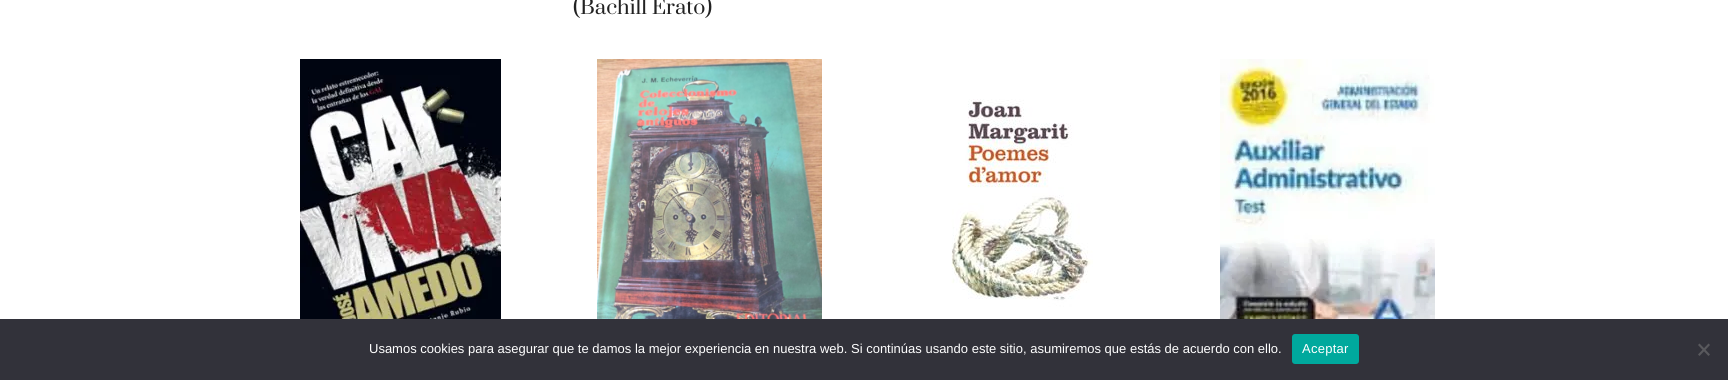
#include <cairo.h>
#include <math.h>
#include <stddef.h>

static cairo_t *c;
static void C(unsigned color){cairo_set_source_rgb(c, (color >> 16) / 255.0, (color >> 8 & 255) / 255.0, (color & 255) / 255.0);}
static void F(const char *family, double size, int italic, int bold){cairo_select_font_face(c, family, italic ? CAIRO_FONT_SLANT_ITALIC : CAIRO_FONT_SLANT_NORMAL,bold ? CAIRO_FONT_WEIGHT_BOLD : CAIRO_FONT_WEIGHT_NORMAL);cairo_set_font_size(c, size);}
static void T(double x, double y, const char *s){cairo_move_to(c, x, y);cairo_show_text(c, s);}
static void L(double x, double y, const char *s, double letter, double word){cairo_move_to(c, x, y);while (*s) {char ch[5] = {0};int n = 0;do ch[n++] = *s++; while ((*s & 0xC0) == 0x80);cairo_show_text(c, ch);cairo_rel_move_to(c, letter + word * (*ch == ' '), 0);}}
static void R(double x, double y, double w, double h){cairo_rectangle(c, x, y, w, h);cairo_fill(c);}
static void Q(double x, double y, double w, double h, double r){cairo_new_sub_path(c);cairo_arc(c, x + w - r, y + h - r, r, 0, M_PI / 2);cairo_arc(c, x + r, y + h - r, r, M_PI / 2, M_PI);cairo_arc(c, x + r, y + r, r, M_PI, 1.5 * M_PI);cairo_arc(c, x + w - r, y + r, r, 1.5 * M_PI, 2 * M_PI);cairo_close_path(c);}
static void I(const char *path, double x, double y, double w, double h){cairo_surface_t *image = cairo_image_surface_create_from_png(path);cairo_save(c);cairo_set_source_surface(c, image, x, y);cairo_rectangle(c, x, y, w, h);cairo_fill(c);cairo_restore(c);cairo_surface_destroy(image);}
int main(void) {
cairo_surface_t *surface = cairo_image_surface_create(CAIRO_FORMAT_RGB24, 1728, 380);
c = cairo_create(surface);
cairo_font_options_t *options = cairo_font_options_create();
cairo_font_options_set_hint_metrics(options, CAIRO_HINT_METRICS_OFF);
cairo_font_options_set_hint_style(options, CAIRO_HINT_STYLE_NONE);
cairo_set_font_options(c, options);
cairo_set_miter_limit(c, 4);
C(0xffffff);
cairo_paint(c);
F("Prata",20,0,0);
C(0x222222);
T(573,14,"(Bachill Erato)");
I("1.png",300,59,201,260);
I("2.png",597,59,225,260);
I("3.png",951,99,142,220);
I("4.png",1220,59,215,260);
C(0x32323a);
R(0,319,1728,61);
F("Liberation Sans",13,0,0);
C(0xffffff);
T(369,353,"Usamos cookies para asegurar que te damos la mejor experiencia en nuestra web. Si continúas usando este sitio, asumiremos que estás de acuerdo con ello.");
C(0x00a99d);
Q(1292,334,67,30,3);
cairo_fill(c);
C(0xffffff);
L(1302,353,"Aceptar",.25,0);
C(0x59595d);
cairo_new_path(c);
cairo_move_to(c,1708.5,343.5);
cairo_line_to(c,1710,345);
cairo_line_to(c,1699.5,356);
cairo_line_to(c,1698,354.5);
cairo_close_path(c);
cairo_fill(c);
cairo_new_path(c);
cairo_move_to(c,1698,345);
cairo_line_to(c,1699.5,343.5);
cairo_line_to(c,1710,354.5);
cairo_line_to(c,1708.5,356);
cairo_close_path(c);
cairo_fill(c);
cairo_surface_write_to_png(surface, "o.png");
cairo_font_options_destroy(options);
cairo_destroy(c);
cairo_surface_destroy(surface);
return 0;
}
